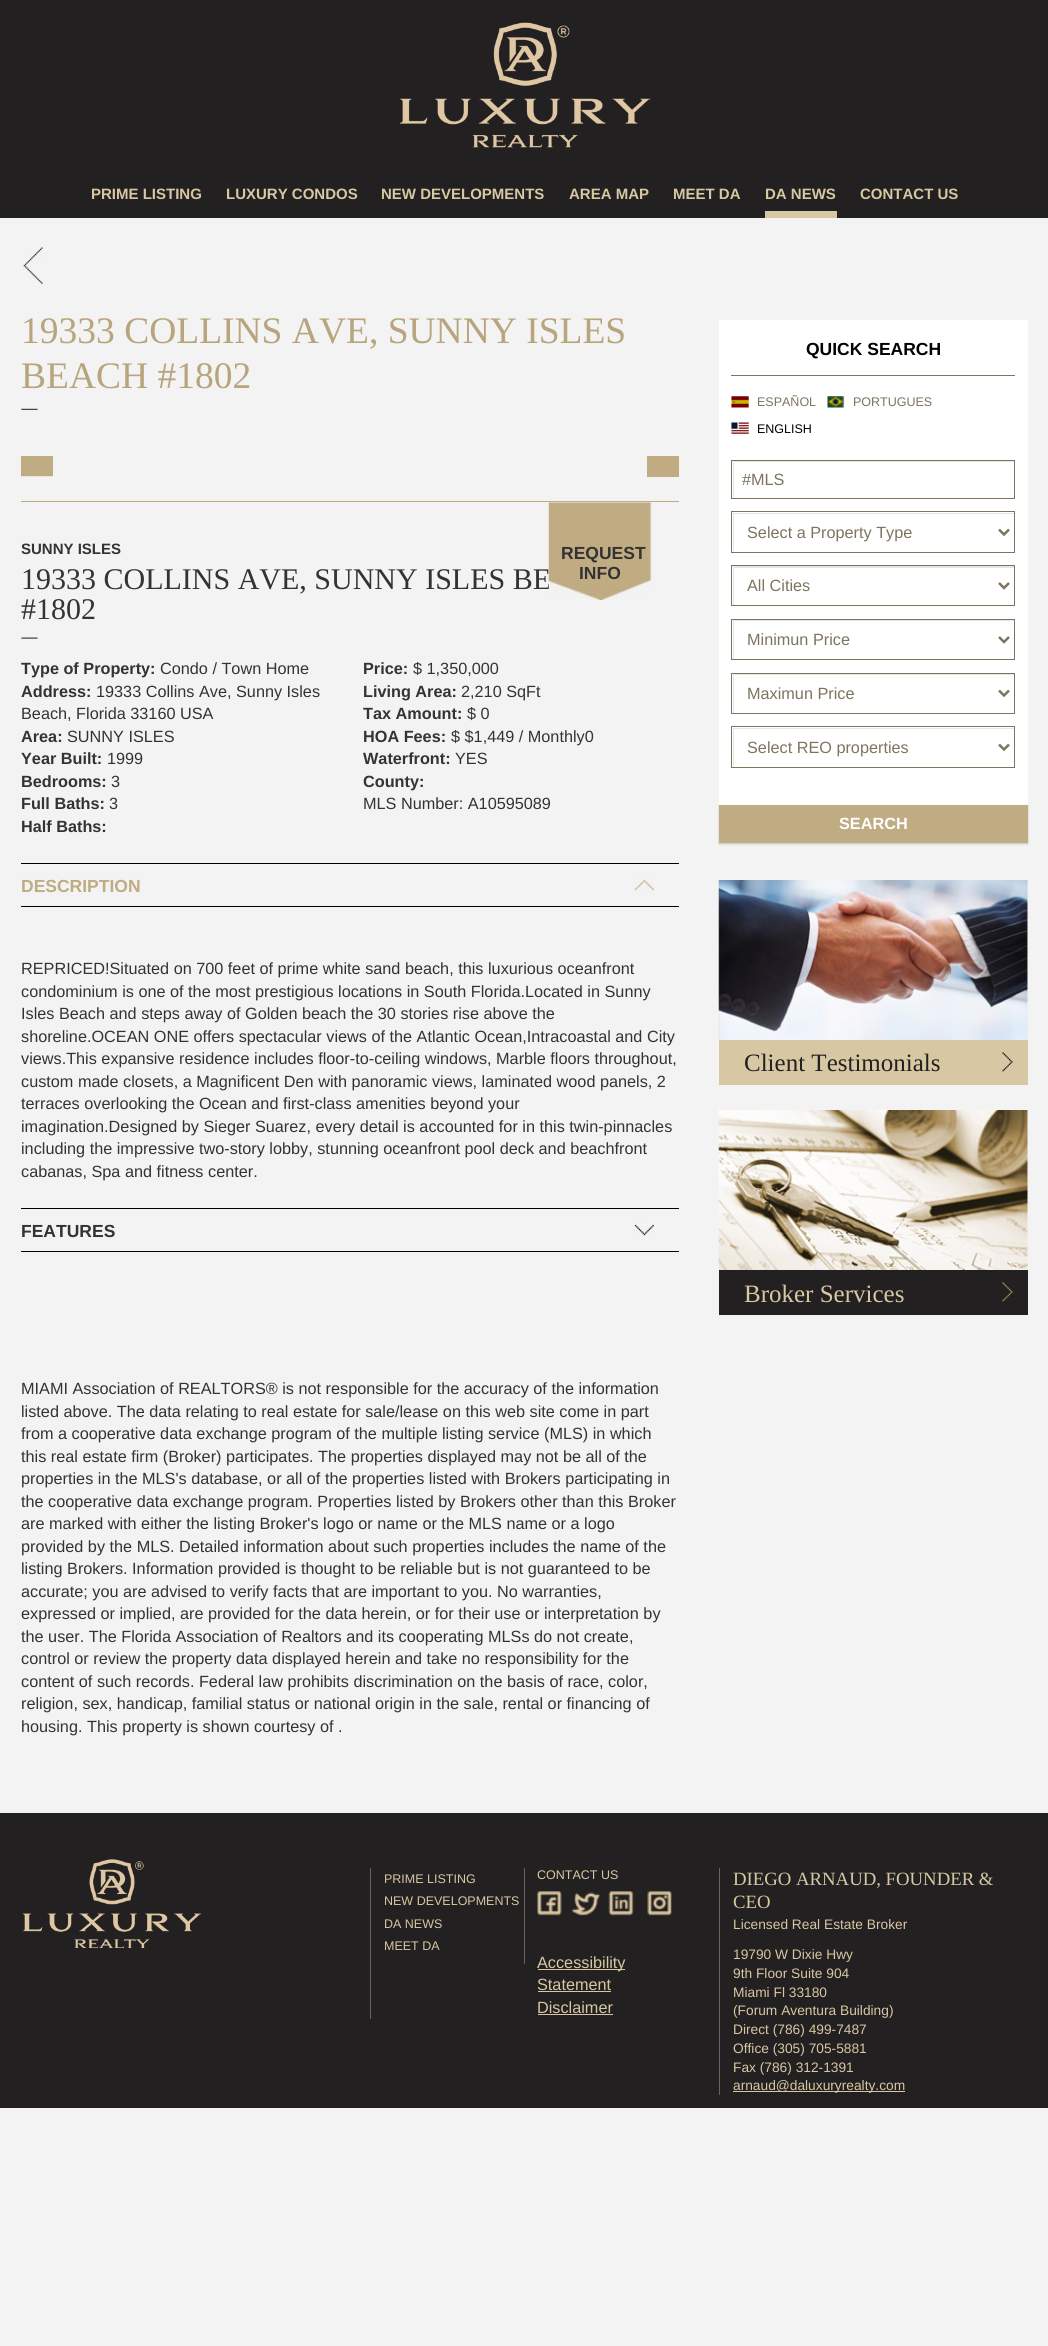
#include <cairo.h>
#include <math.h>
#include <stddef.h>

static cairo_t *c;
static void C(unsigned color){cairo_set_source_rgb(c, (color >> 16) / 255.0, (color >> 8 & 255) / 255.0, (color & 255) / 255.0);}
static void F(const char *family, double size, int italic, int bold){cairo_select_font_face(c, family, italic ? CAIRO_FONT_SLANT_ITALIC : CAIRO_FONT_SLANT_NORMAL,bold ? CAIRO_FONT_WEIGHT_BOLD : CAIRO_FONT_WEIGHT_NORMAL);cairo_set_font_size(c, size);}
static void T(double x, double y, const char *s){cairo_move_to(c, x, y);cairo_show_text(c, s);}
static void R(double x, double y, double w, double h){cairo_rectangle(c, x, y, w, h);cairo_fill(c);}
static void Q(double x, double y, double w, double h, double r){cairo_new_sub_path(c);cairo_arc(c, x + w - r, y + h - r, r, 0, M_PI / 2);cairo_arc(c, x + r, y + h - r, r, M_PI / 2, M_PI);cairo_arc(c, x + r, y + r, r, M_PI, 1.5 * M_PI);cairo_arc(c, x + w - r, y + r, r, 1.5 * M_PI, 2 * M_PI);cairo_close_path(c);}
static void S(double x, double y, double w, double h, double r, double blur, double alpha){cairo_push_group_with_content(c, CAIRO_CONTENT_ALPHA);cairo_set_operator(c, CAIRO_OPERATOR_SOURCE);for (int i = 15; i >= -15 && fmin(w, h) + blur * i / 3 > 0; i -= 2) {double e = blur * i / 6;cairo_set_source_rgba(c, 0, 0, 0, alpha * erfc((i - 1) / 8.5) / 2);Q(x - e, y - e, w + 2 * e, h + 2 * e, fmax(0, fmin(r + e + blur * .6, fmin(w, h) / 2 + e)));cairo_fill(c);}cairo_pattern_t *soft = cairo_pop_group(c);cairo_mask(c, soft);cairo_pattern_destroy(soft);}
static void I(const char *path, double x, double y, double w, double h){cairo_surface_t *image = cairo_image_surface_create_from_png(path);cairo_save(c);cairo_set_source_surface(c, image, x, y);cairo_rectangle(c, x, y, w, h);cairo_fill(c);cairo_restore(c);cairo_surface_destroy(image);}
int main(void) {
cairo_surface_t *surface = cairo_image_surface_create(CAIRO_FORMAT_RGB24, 1048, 2346);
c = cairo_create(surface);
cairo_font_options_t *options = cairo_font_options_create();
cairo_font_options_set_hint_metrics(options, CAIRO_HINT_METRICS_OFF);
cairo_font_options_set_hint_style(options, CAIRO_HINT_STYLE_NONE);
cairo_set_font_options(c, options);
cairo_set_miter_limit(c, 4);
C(0xf3f3f3);
cairo_paint(c);
C(0x232021);
R(0,0,1048,218);
I("1.png",400,22,251,126);
F("Liberation Sans",15,0,1);
C(0xd7c7a3);
T(91,199,"PRIME LISTING");
T(226,199,"LUXURY CONDOS");
T(381,199,"NEW DEVELOPMENTS");
T(569,199,"AREA MAP");
T(673,199,"MEET DA");
R(765,211,72,7);
T(765,199,"DA NEWS");
T(860,199,"CONTACT US");
I("2.png",23,247,20,37);
I("3.png",21,408,17,2);
F("Liberation Serif",37.5,0,0);
C(0xb8a57e);
T(21,343,"19333 COLLINS AVE, SUNNY ISLES");
T(21,388,"BEACH #1802");
C(0xc0ac83);
R(21,456,32,20);
I("4.png",21,476,32,1);
C(0xc1ab82);
R(647,456,32,21);
C(0xc0ac83);
R(21,501,658,1);
F("Liberation Sans",15,0,1);
C(0x333333);
T(21,554,"SUNNY ISLES");
F("Liberation Serif",30,0,0);
T(21,589,"19333 COLLINS AVE, SUNNY ISLES BE");
I("5.png",548,502,104,98);
F("Liberation Sans",17.5,0,1);
T(561,559,"REQUEST");
T(579,579,"INFO");
I("6.png",21,637,17,2);
F("Liberation Serif",30,0,0);
T(21,619,"#1802");
F("Liberation Sans",16.25,0,1);
T(21,674,"Type of Property:");
F("Liberation Sans",16.25,0,0);
T(160,674,"Condo / Town Home");
F("Liberation Sans",16.25,0,1);
T(21,697,"Address:");
F("Liberation Sans",16.25,0,0);
T(96,697,"19333 Collins Ave, Sunny Isles");
T(21,719,"Beach, Florida 33160 USA");
F("Liberation Sans",16.25,0,1);
T(21,742,"Area:");
F("Liberation Sans",16.25,0,0);
T(67,742,"SUNNY ISLES");
F("Liberation Sans",16.25,0,1);
T(21,764,"Year Built:");
F("Liberation Sans",16.25,0,0);
T(107,764,"1999");
F("Liberation Sans",16.25,0,1);
T(21,787,"Bedrooms:");
F("Liberation Sans",16.25,0,0);
T(111,787,"3");
F("Liberation Sans",16.25,0,1);
T(21,809,"Full Baths:");
F("Liberation Sans",16.25,0,0);
T(109,809,"3");
F("Liberation Sans",16.25,0,1);
T(21,832,"Half Baths:");
T(363,674,"Price:");
F("Liberation Sans",16.25,0,0);
T(413,674,"$ 1,350,000");
F("Liberation Sans",16.25,0,1);
T(363,697,"Living Area:");
F("Liberation Sans",16.25,0,0);
T(461,697,"2,210 SqFt");
F("Liberation Sans",16.25,0,1);
T(363,719,"Tax Amount:");
F("Liberation Sans",16.25,0,0);
T(467,719,"$ 0");
F("Liberation Sans",16.25,0,1);
T(363,742,"HOA Fees:");
F("Liberation Sans",16.25,0,0);
T(451,742,"$ $1,449 / Monthly0");
F("Liberation Sans",16.25,0,1);
T(363,764,"Waterfront:");
F("Liberation Sans",16.25,0,0);
T(455,764,"YES");
F("Liberation Sans",16.25,0,1);
T(363,787,"County:");
F("Liberation Sans",16.25,0,0);
T(363,809,"MLS Number: A10595089");
I("7.png",634,874,20,20);
C(0x000000);
R(21,863,658,1);
R(21,906,658,1);
F("Liberation Sans",17.5,0,1);
C(0xc0ac83);
T(21,892,"DESCRIPTION");
F("Liberation Sans",16.25,0,0);
C(0x333333);
T(21,974,"REPRICED!Situated on 700 feet of prime white sand beach, this luxurious oceanfront");
T(21,997,"condominium is one of the most prestigious locations in South Florida.Located in Sunny");
T(21,1019,"Isles Beach and steps away of Golden beach the 30 stories rise above the");
T(21,1042,"shoreline.OCEAN ONE offers spectacular views of the Atlantic Ocean,Intracoastal and City");
T(21,1064,"views.This expansive residence includes floor-to-ceiling windows, Marble floors throughout,");
T(21,1087,"custom made closets, a Magnificent Den with panoramic views, laminated wood panels, 2");
T(21,1109,"terraces overlooking the Ocean and first-class amenities beyond your");
T(21,1132,"imagination.Designed by Sieger Suarez, every detail is accounted for in this twin-pinnacles");
T(21,1154,"including the impressive two-story lobby, stunning oceanfront pool deck and beachfront");
T(21,1177,"cabanas, Spa and fitness center.");
I("8.png",634,1223,20,13);
C(0x000000);
R(21,1208,658,1);
R(21,1251,658,1);
F("Liberation Sans",17.5,0,1);
C(0x333333);
T(21,1237,"FEATURES");
F("Liberation Sans",16.25,0,0);
T(21,1394,"MIAMI Association of REALTORS® is not responsible for the accuracy of the information");
T(21,1417,"listed above. The data relating to real estate for sale/lease on this web site come in part");
T(21,1439,"from a cooperative data exchange program of the multiple listing service (MLS) in which");
T(21,1462,"this real estate firm (Broker) participates. The properties displayed may not be all of the");
T(21,1484,"properties in the MLS's database, or all of the properties listed with Brokers participating in");
T(21,1507,"the cooperative data exchange program. Properties listed by Brokers other than this Broker");
T(21,1529,"are marked with either the listing Broker's logo or name or the MLS name or a logo");
T(21,1552,"provided by the MLS. Detailed information about such properties includes the name of the");
T(21,1574,"listing Brokers. Information provided is thought to be reliable but is not guaranteed to be");
T(21,1597,"accurate; you are advised to verify facts that are important to you. No warranties,");
T(21,1619,"expressed or implied, are provided for the data herein, or for their use or interpretation by");
T(21,1642,"the user. The Florida Association of Realtors and its cooperating MLSs do not create,");
T(21,1664,"control or review the property data displayed herein and take no responsibility for the");
T(21,1687,"content of such records. Federal law prohibits discrimination on the basis of race, color,");
T(21,1709,"religion, sex, handicap, familial status or national origin in the sale, rental or financing of");
T(21,1732,"housing. This property is shown courtesy of .");
C(0xffffff);
R(719,320,309,485);
C(0x7d745f);
R(731,375,284,1);
F("Liberation Sans",17.5,0,1);
C(0x030000);
T(806,355,"QUICK SEARCH");
I("9.png",731,396,18,12);
F("Liberation Sans",12.5,0,0);
C(0x7d745f);
T(757,406,"ESPAÑOL");
I("10.png",827,396,18,12);
T(853,406,"PORTUGUES");
I("11.png",731,422,18,12);
C(0x030000);
T(757,433,"ENGLISH");
cairo_save(c);
cairo_rectangle(c,733,461,281,37);
cairo_clip(c);
C(0xe6e6e6);
cairo_set_fill_rule(c,CAIRO_FILL_RULE_EVEN_ODD);
cairo_new_path(c);
cairo_move_to(c,609,338);
cairo_line_to(c,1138,338);
cairo_line_to(c,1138,621);
cairo_line_to(c,609,621);
cairo_close_path(c);
cairo_move_to(c,734,462);
cairo_line_to(c,1015,462);
cairo_line_to(c,1015,499);
cairo_line_to(c,734,499);
cairo_close_path(c);
cairo_fill(c);
cairo_restore(c);
cairo_rectangle(c,731.5,460.5,283,38);
C(0x7d745f);
cairo_set_line_width(c,1);
cairo_stroke(c);
F("Liberation Sans",16.25,0,0);
T(742,485,"#MLS");
cairo_save(c);
cairo_rectangle(c,733,513,281,38);
cairo_clip(c);
C(0xe6e6e6);
cairo_set_fill_rule(c,CAIRO_FILL_RULE_EVEN_ODD);
cairo_new_path(c);
cairo_move_to(c,609,389);
cairo_line_to(c,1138,389);
cairo_line_to(c,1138,675);
cairo_line_to(c,609,675);
cairo_close_path(c);
cairo_move_to(c,734,514);
cairo_line_to(c,1015,514);
cairo_line_to(c,1015,552);
cairo_line_to(c,734,552);
cairo_close_path(c);
cairo_fill(c);
cairo_restore(c);
cairo_rectangle(c,731.5,511.5,283,41);
cairo_stroke(c);
cairo_new_path(c);
cairo_move_to(c,999,529.5);
cairo_line_to(c,1004,534.5);
cairo_line_to(c,1009,529.5);
cairo_set_line_width(c,2.5);
cairo_stroke(c);
T(747,538,"Select a Property Type");
cairo_save(c);
cairo_rectangle(c,733,566,281,39);
cairo_clip(c);
C(0xe6e6e6);
cairo_set_fill_rule(c,CAIRO_FILL_RULE_EVEN_ODD);
cairo_new_path(c);
cairo_move_to(c,609,442);
cairo_line_to(c,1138,442);
cairo_line_to(c,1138,729);
cairo_line_to(c,609,729);
cairo_close_path(c);
cairo_move_to(c,734,568);
cairo_line_to(c,1015,568);
cairo_line_to(c,1015,606);
cairo_line_to(c,734,606);
cairo_close_path(c);
cairo_fill(c);
cairo_restore(c);
cairo_rectangle(c,731.5,565.5,283,40);
cairo_set_line_width(c,1);
cairo_stroke(c);
cairo_new_path(c);
cairo_move_to(c,999,583);
cairo_line_to(c,1004,588);
cairo_line_to(c,1009,583);
cairo_set_line_width(c,2.5);
cairo_stroke(c);
T(747,591,"All Cities");
cairo_save(c);
cairo_rectangle(c,733,620,281,39);
cairo_clip(c);
C(0xe6e6e6);
cairo_set_fill_rule(c,CAIRO_FILL_RULE_EVEN_ODD);
cairo_new_path(c);
cairo_move_to(c,609,496);
cairo_line_to(c,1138,496);
cairo_line_to(c,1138,782);
cairo_line_to(c,609,782);
cairo_close_path(c);
cairo_move_to(c,734,621);
cairo_line_to(c,1015,621);
cairo_line_to(c,1015,660);
cairo_line_to(c,734,660);
cairo_close_path(c);
cairo_fill(c);
cairo_restore(c);
cairo_rectangle(c,731.5,619.5,283,40);
cairo_set_line_width(c,1);
cairo_stroke(c);
cairo_new_path(c);
cairo_move_to(c,999,637);
cairo_line_to(c,1004,642);
cairo_line_to(c,1009,637);
cairo_set_line_width(c,2.5);
cairo_stroke(c);
T(747,645,"Minimun Price");
cairo_save(c);
cairo_rectangle(c,733,674,281,39);
cairo_clip(c);
C(0xe6e6e6);
cairo_set_fill_rule(c,CAIRO_FILL_RULE_EVEN_ODD);
cairo_new_path(c);
cairo_move_to(c,609,550);
cairo_line_to(c,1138,550);
cairo_line_to(c,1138,836);
cairo_line_to(c,609,836);
cairo_close_path(c);
cairo_move_to(c,734,675);
cairo_line_to(c,1015,675);
cairo_line_to(c,1015,714);
cairo_line_to(c,734,714);
cairo_close_path(c);
cairo_fill(c);
cairo_restore(c);
cairo_rectangle(c,731.5,673.5,283,40);
cairo_set_line_width(c,1);
cairo_stroke(c);
cairo_new_path(c);
cairo_move_to(c,999,690.5);
cairo_line_to(c,1004,695.5);
cairo_line_to(c,1009,690.5);
cairo_set_line_width(c,2.5);
cairo_stroke(c);
T(747,699,"Maximun Price");
cairo_save(c);
cairo_rectangle(c,733,728,281,38);
cairo_clip(c);
C(0xe6e6e6);
cairo_set_fill_rule(c,CAIRO_FILL_RULE_EVEN_ODD);
cairo_new_path(c);
cairo_move_to(c,609,604);
cairo_line_to(c,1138,604);
cairo_line_to(c,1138,890);
cairo_line_to(c,609,890);
cairo_close_path(c);
cairo_move_to(c,734,729);
cairo_line_to(c,1015,729);
cairo_line_to(c,1015,768);
cairo_line_to(c,734,768);
cairo_close_path(c);
cairo_fill(c);
cairo_restore(c);
cairo_rectangle(c,731.5,726.5,283,41);
cairo_set_line_width(c,1);
cairo_stroke(c);
cairo_new_path(c);
cairo_move_to(c,999,744.5);
cairo_line_to(c,1004,749.5);
cairo_line_to(c,1009,744.5);
cairo_set_line_width(c,2.5);
cairo_stroke(c);
T(747,753,"Select REO properties");
C(0x000000);
S(719,806,309,38,0,1,.2);
C(0xc0ac83);
R(719,805,309,38);
F("Liberation Sans",16.25,0,1);
C(0xffffff);
T(839,829,"SEARCH");
I("12.png",718,880,310,160);
C(0xd7c7a3);
R(719,1040,309,45);
I("13.png",1002,1052,11,20);
F("Liberation Serif",25,0,0);
C(0x232021);
T(744,1071,"Client Testimonials");
I("14.png",718,1110,310,160);
R(719,1270,309,45);
I("15.png",1002,1282,11,20);
C(0xd7c7a3);
T(744,1302,"Broker Services");
C(0x232021);
R(0,1813,1048,295);
I("16.png",22,1859,180,89);
C(0x6b6355);
R(370,1868,1,151);
R(524,1868,1,96);
F("Liberation Sans",12.5,0,0);
C(0xd7c7a3);
T(384,1883,"PRIME LISTING");
T(384,1905,"NEW DEVELOPMENTS");
T(384,1928,"DA NEWS");
T(384,1950,"MEET DA");
T(537,1879,"CONTACT US");
I("17.png",537,1891,25,25);
I("18.png",572,1892,29,24);
I("19.png",608,1891,26,25);
I("20.png",647,1891,25,25);
R(538,1969,87,1);
F("Liberation Sans",16.25,0,0);
T(537,1968,"Accessibility");
T(537,1990,"Statement");
R(538,1991,73,1);
T(537,2013,"Disclaimer");
R(538,2014,75,1);
C(0x6b6355);
R(719,1868,1,227);
F("Liberation Serif",18.75,0,0);
C(0xd7c7a3);
T(733,1885,"DIEGO ARNAUD, FOUNDER &");
T(733,1908,"CEO");
F("Liberation Sans",13.75,0,0);
T(733,1929,"Licensed Real Estate Broker");
T(733,1959,"19790 W Dixie Hwy");
T(733,1978,"9th Floor Suite 904");
T(733,1997,"Miami Fl 33180");
T(733,2015,"(Forum Aventura Building)");
T(733,2034,"Direct (786) 499-7487");
T(733,2053,"Office (305) 705-5881");
T(733,2072,"Fax (786) 312-1391");
R(733,2091,172,1);
T(733,2090,"arnaud@daluxuryrealty.com");
cairo_surface_write_to_png(surface, "o.png");
cairo_font_options_destroy(options);
cairo_destroy(c);
cairo_surface_destroy(surface);
return 0;
}
